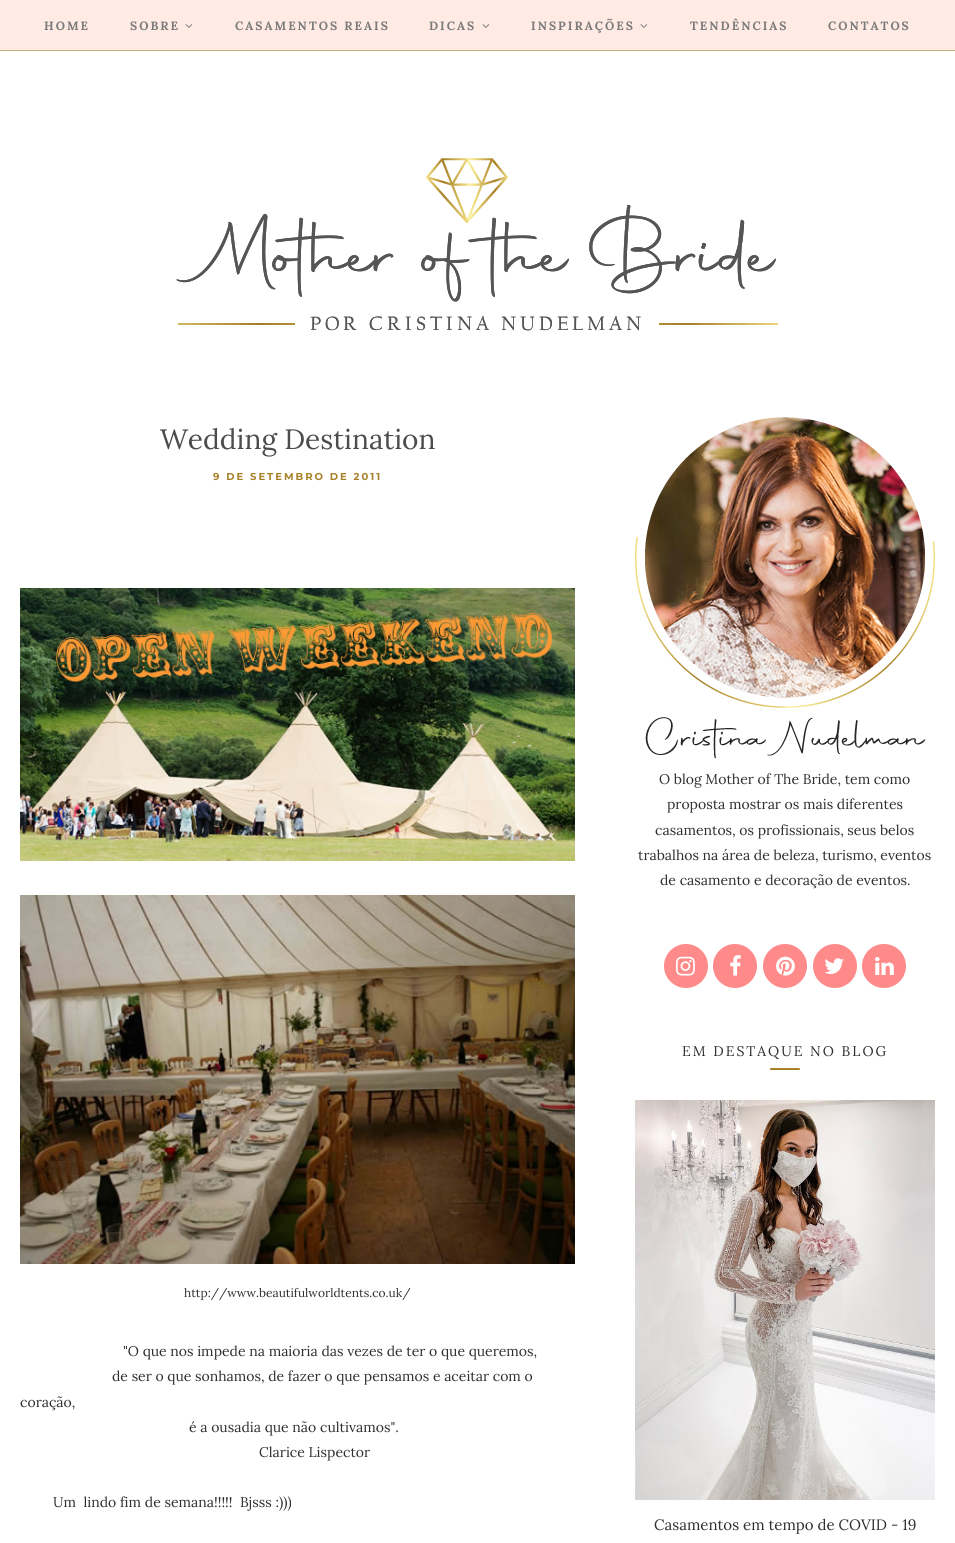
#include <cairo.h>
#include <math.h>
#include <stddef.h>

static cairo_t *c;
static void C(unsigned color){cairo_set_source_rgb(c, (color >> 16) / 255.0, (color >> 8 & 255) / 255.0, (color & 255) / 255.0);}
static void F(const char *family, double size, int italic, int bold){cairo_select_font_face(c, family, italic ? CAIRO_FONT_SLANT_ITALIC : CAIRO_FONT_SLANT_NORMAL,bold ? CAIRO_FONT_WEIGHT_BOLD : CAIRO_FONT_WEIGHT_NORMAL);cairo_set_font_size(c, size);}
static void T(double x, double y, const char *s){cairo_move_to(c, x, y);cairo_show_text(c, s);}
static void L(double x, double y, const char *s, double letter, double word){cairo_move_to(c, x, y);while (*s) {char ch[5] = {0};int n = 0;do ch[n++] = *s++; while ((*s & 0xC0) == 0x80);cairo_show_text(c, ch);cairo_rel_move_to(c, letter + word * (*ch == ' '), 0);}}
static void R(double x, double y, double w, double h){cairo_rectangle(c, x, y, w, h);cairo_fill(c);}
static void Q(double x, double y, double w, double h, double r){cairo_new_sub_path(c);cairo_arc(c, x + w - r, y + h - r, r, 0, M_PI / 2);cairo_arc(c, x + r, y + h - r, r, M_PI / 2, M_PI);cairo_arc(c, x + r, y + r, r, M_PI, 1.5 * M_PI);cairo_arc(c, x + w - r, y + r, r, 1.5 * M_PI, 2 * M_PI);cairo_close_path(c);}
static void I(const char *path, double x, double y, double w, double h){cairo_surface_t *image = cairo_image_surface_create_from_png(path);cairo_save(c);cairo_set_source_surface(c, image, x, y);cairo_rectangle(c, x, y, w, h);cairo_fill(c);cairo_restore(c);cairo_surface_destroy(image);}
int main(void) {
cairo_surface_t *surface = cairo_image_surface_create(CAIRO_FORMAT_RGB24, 955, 1543);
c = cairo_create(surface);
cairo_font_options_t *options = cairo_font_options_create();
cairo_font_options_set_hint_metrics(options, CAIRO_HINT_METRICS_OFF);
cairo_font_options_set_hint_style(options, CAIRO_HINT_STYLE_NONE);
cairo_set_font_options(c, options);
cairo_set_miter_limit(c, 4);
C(0xffffff);
cairo_paint(c);
C(0xffeae4);
R(0,0,955,50);
C(0xcab078);
R(0,50,955,1);
F("Lora",12,0,1);
C(0x7a7a7a);
L(44,30,"HOME",2,0);
L(130,30,"SOBRE",2,0);
I("1.png",185,24,8,4);
L(235,30,"CASAMENTOS REAIS",2,0);
L(429,30,"DICAS",2,0);
I("1.png",482,24,8,4);
L(531,30,"INSPIRAÇÕES",2,0);
I("1.png",640,24,8,4);
L(690,30,"TENDÊNCIAS",2,0);
L(828,30,"CONTATOS",2,0);
I("2.png",176,158,602,173);
F("Lora",28,0,0);
C(0x4c4c4c);
T(160,449,"Wedding Destination");
F("Montserrat Thin",10,0,0);
C(0xa78027);
L(213,480,"9 DE SETEMBRO DE 2011",2,0);
I("3.png",20,588,555,273);
I("4.png",20,895,555,369);
F("Lora",12,0,0);
C(0x2f2f2f);
T(184,1297,"http://www.beautifulworldtents.co.uk/");
F("Lora",14,0,0);
T(123,1356,"\"O que nos impede na maioria das vezes de ter o que queremos,");
T(112,1381,"de ser o que sonhamos, de fazer o que pensamos e aceitar com o");
T(20,1407,"coração,");
T(189,1432,"é a ousadia que não cultivamos\".");
T(259,1457,"Clarice Lispector");
T(53,1507,"Um  lindo fim de semana!!!!!  Bjsss :)))");
I("5.png",635,417,300,342);
T(659,784,"O blog Mother of The Bride, tem como");
T(667,809,"proposta mostrar os mais diferentes");
T(655,835,"casamentos, os profissionais, seus belos");
T(638,860,"trabalhos na área de beleza, turismo, eventos");
T(660,885,"de casamento e decoração de eventos.");
C(0xff8a8a);
cairo_new_path(c);
cairo_arc(c,686,966,22,0,2 * M_PI);
cairo_fill(c);
I("6.png",676,956,19,20);
cairo_arc(c,735,966,22,0,2 * M_PI);
cairo_fill(c);
I("7.png",730,955,11,21);
cairo_arc(c,785,966,22,0,2 * M_PI);
cairo_fill(c);
I("8.png",776,956,19,20);
cairo_arc(c,835,966,22,0,2 * M_PI);
cairo_fill(c);
I("9.png",824,958,20,16);
cairo_arc(c,884,966,22,0,2 * M_PI);
cairo_fill(c);
I("10.png",875,957,19,18);
C(0x2f2f2f);
L(682,1056,"EM DESTAQUE NO BLOG",2,0);
C(0xa78027);
Q(770,1068,30,2,1);
cairo_fill(c);
I("11.png",635,1100,300,400);
F("Lora",15,0,0);
C(0x2f2f2f);
T(654,1530,"Casamentos em tempo de COVID - 19");
cairo_surface_write_to_png(surface, "o.png");
cairo_font_options_destroy(options);
cairo_destroy(c);
cairo_surface_destroy(surface);
return 0;
}
